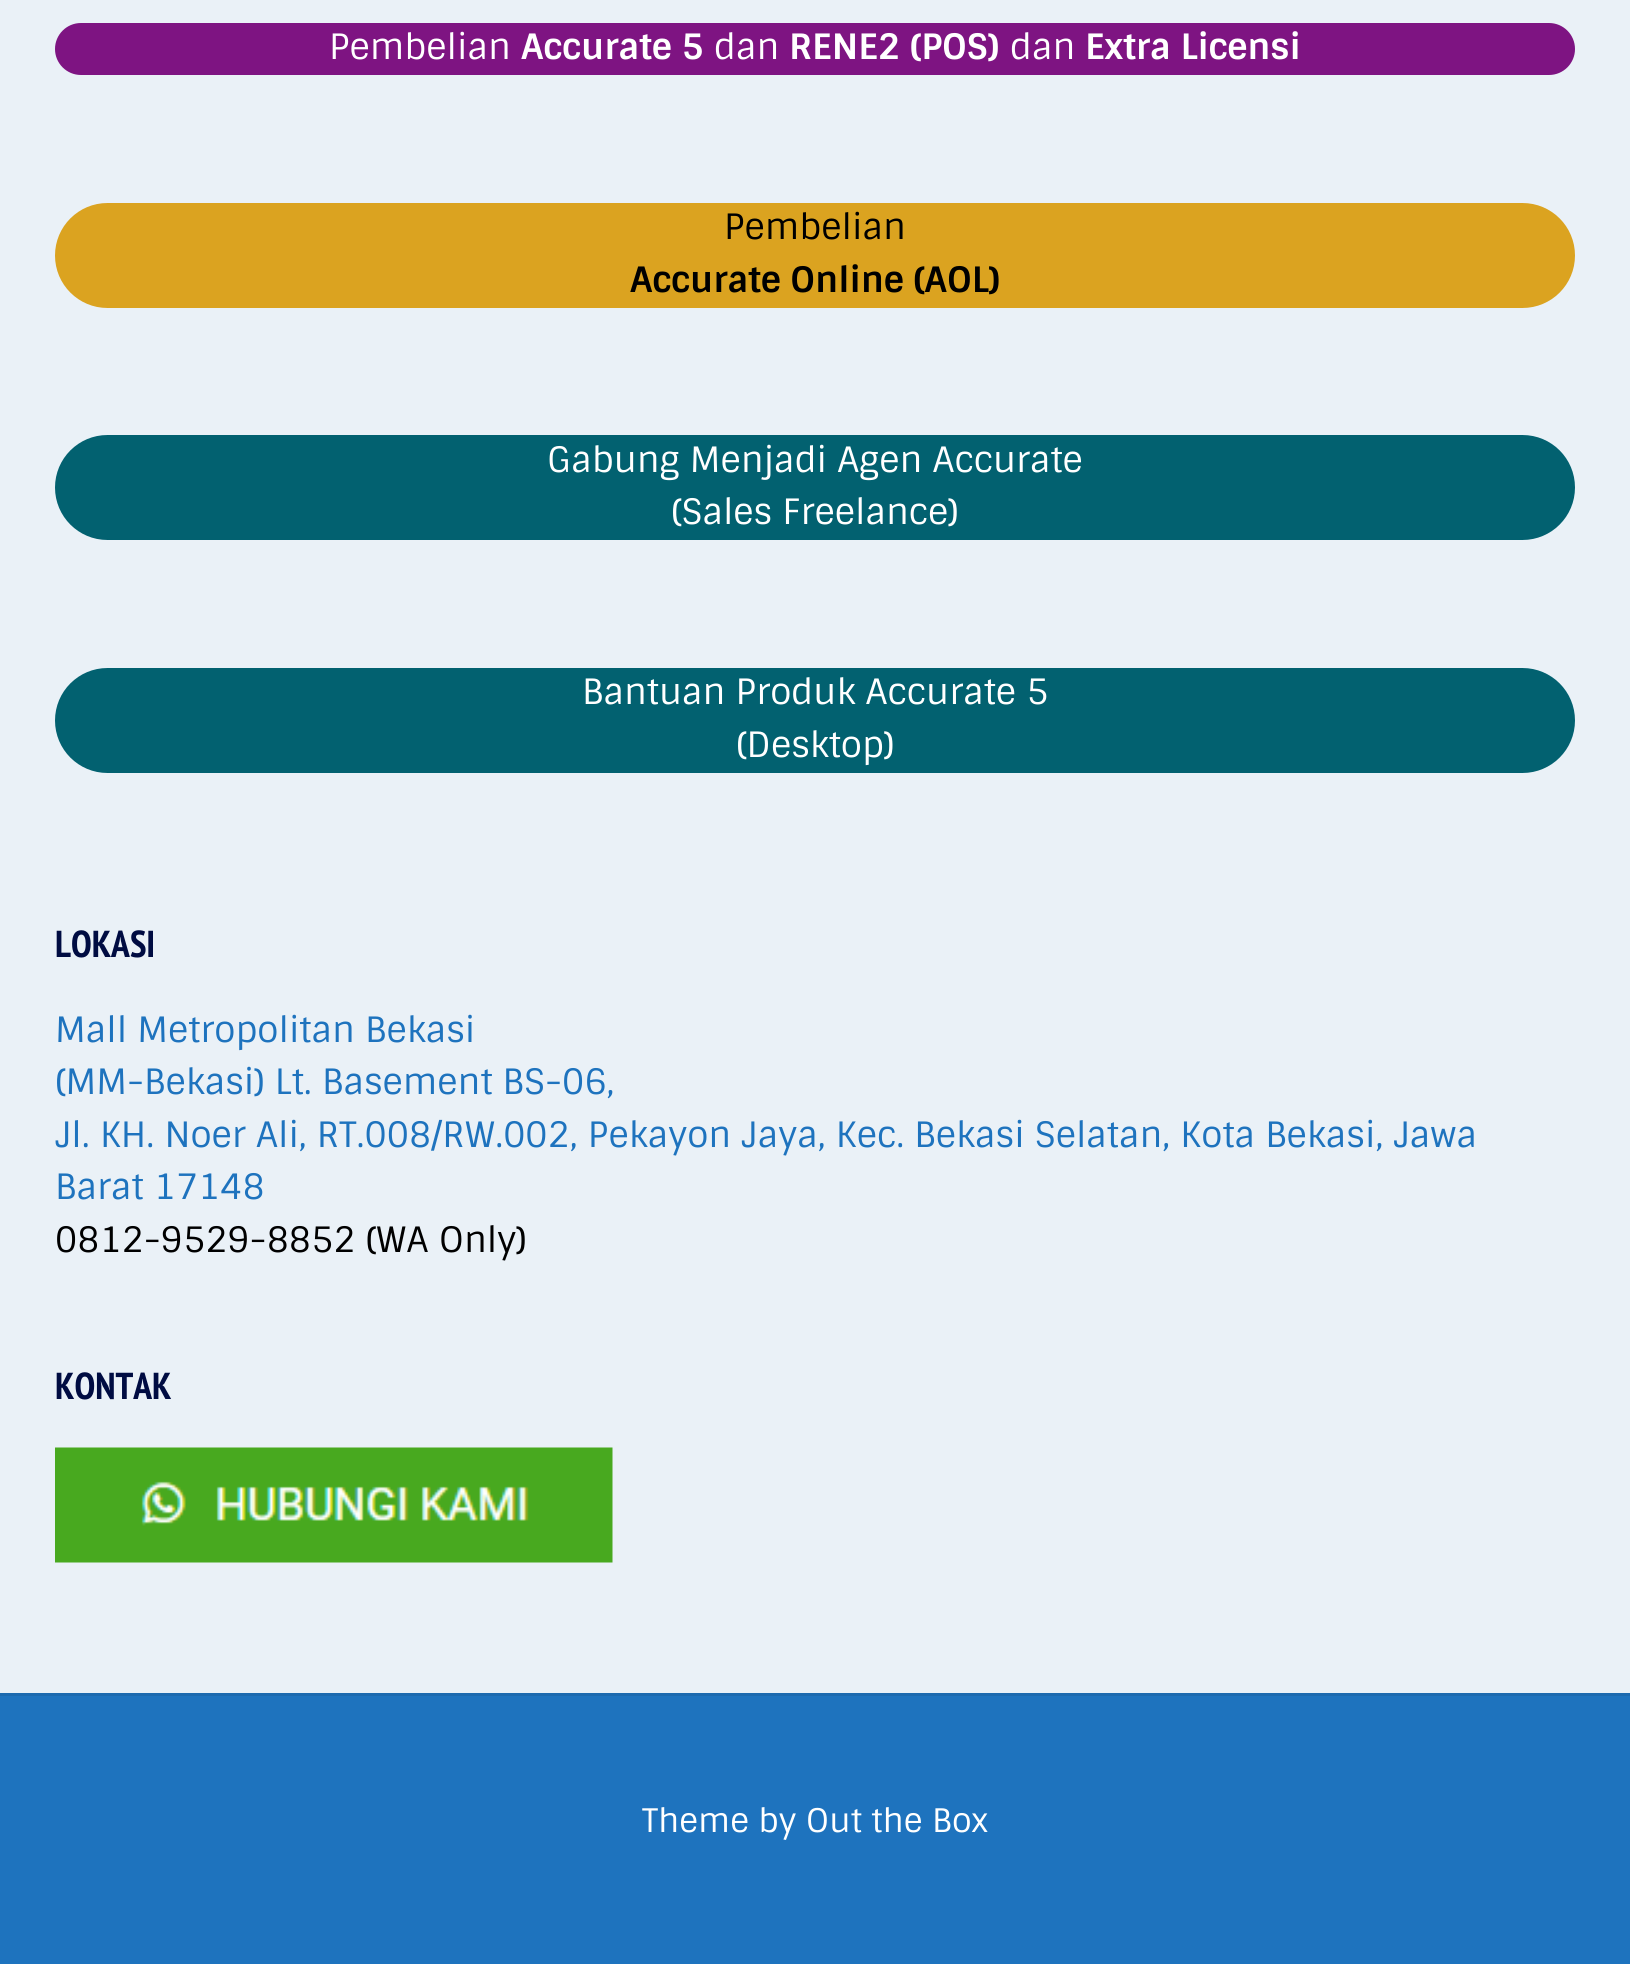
#include <cairo.h>
#include <math.h>
#include <stddef.h>

static cairo_t *c;
static void C(unsigned color){cairo_set_source_rgb(c, (color >> 16) / 255.0, (color >> 8 & 255) / 255.0, (color & 255) / 255.0);}
static void F(const char *family, double size, int italic, int bold){cairo_select_font_face(c, family, italic ? CAIRO_FONT_SLANT_ITALIC : CAIRO_FONT_SLANT_NORMAL,bold ? CAIRO_FONT_WEIGHT_BOLD : CAIRO_FONT_WEIGHT_NORMAL);cairo_set_font_size(c, size);}
static void T(double x, double y, const char *s){cairo_move_to(c, x, y);cairo_show_text(c, s);}
static void R(double x, double y, double w, double h){cairo_rectangle(c, x, y, w, h);cairo_fill(c);}
static void Q(double x, double y, double w, double h, double r){cairo_new_sub_path(c);cairo_arc(c, x + w - r, y + h - r, r, 0, M_PI / 2);cairo_arc(c, x + r, y + h - r, r, M_PI / 2, M_PI);cairo_arc(c, x + r, y + r, r, M_PI, 1.5 * M_PI);cairo_arc(c, x + w - r, y + r, r, 1.5 * M_PI, 2 * M_PI);cairo_close_path(c);}
static void I(const char *path, double x, double y, double w, double h){cairo_surface_t *image = cairo_image_surface_create_from_png(path);cairo_save(c);cairo_set_source_surface(c, image, x, y);cairo_rectangle(c, x, y, w, h);cairo_fill(c);cairo_restore(c);cairo_surface_destroy(image);}
int main(void) {
cairo_surface_t *surface = cairo_image_surface_create(CAIRO_FORMAT_RGB24, 1630, 1964);
c = cairo_create(surface);
cairo_font_options_t *options = cairo_font_options_create();
cairo_font_options_set_hint_metrics(options, CAIRO_HINT_METRICS_OFF);
cairo_font_options_set_hint_style(options, CAIRO_HINT_STYLE_NONE);
cairo_set_font_options(c, options);
cairo_set_miter_limit(c, 4);
C(0xeaf1f7);
cairo_paint(c);
C(0x7e1482);
Q(55,23,1520,52,26);
cairo_fill(c);
F("Sintony",35,0,0);
C(0xffffff);
T(329,59,"Pembelian");
F("Sintony",35,0,1);
T(521,59,"Accurate 5");
F("Sintony",35,0,0);
T(714,59,"dan");
F("Sintony",35,0,1);
T(789,59,"RENE2 (POS)");
F("Sintony",35,0,0);
T(1010,59,"dan");
F("Sintony",35,0,1);
T(1085,59,"Extra Licensi");
C(0xdba320);
Q(55,203,1520,105,52.5);
cairo_fill(c);
F("Sintony",35,0,0);
C(0x000000);
T(724,239,"Pembelian");
F("Sintony",35,0,1);
T(630,292,"Accurate Online (AOL)");
C(0x026170);
Q(55,435,1520,105,52.5);
cairo_fill(c);
F("Sintony",35,0,0);
C(0xffffff);
T(547,472,"Gabung Menjadi Agen Accurate");
T(671,524,"(Sales Freelance)");
C(0x026170);
Q(55,668,1520,105,52.5);
cairo_fill(c);
C(0xffffff);
T(582,704,"Bantuan Produk Accurate 5");
T(736,757,"(Desktop)");
F("PT Sans Narrow",37.5,0,1);
C(0x000c42);
T(55,957,"LOKASI");
F("Sintony",35,0,0);
C(0x1e73be);
T(55,1042,"Mall Metropolitan Bekasi");
T(55,1094,"(MM-Bekasi) Lt. Basement BS-06,");
T(55,1147,"Jl. KH. Noer Ali, RT.008/RW.002, Pekayon Jaya, Kec. Bekasi Selatan, Kota Bekasi, Jawa");
T(55,1199,"Barat 17148");
C(0x000000);
T(55,1252,"0812-9529-8852 (WA Only)");
F("PT Sans Narrow",37.5,0,1);
C(0x000c42);
T(55,1399,"KONTAK");
I("1.png",55,1447,558,116);
C(0x1e73be);
R(0,1696,1630,268);
C(0x1c6aaf);
R(0,1693,1630,3);
F("Sintony",32.5,0,0);
C(0xffffff);
T(642,1832,"Theme by Out the Box");
cairo_surface_write_to_png(surface, "o.png");
cairo_font_options_destroy(options);
cairo_destroy(c);
cairo_surface_destroy(surface);
return 0;
}
